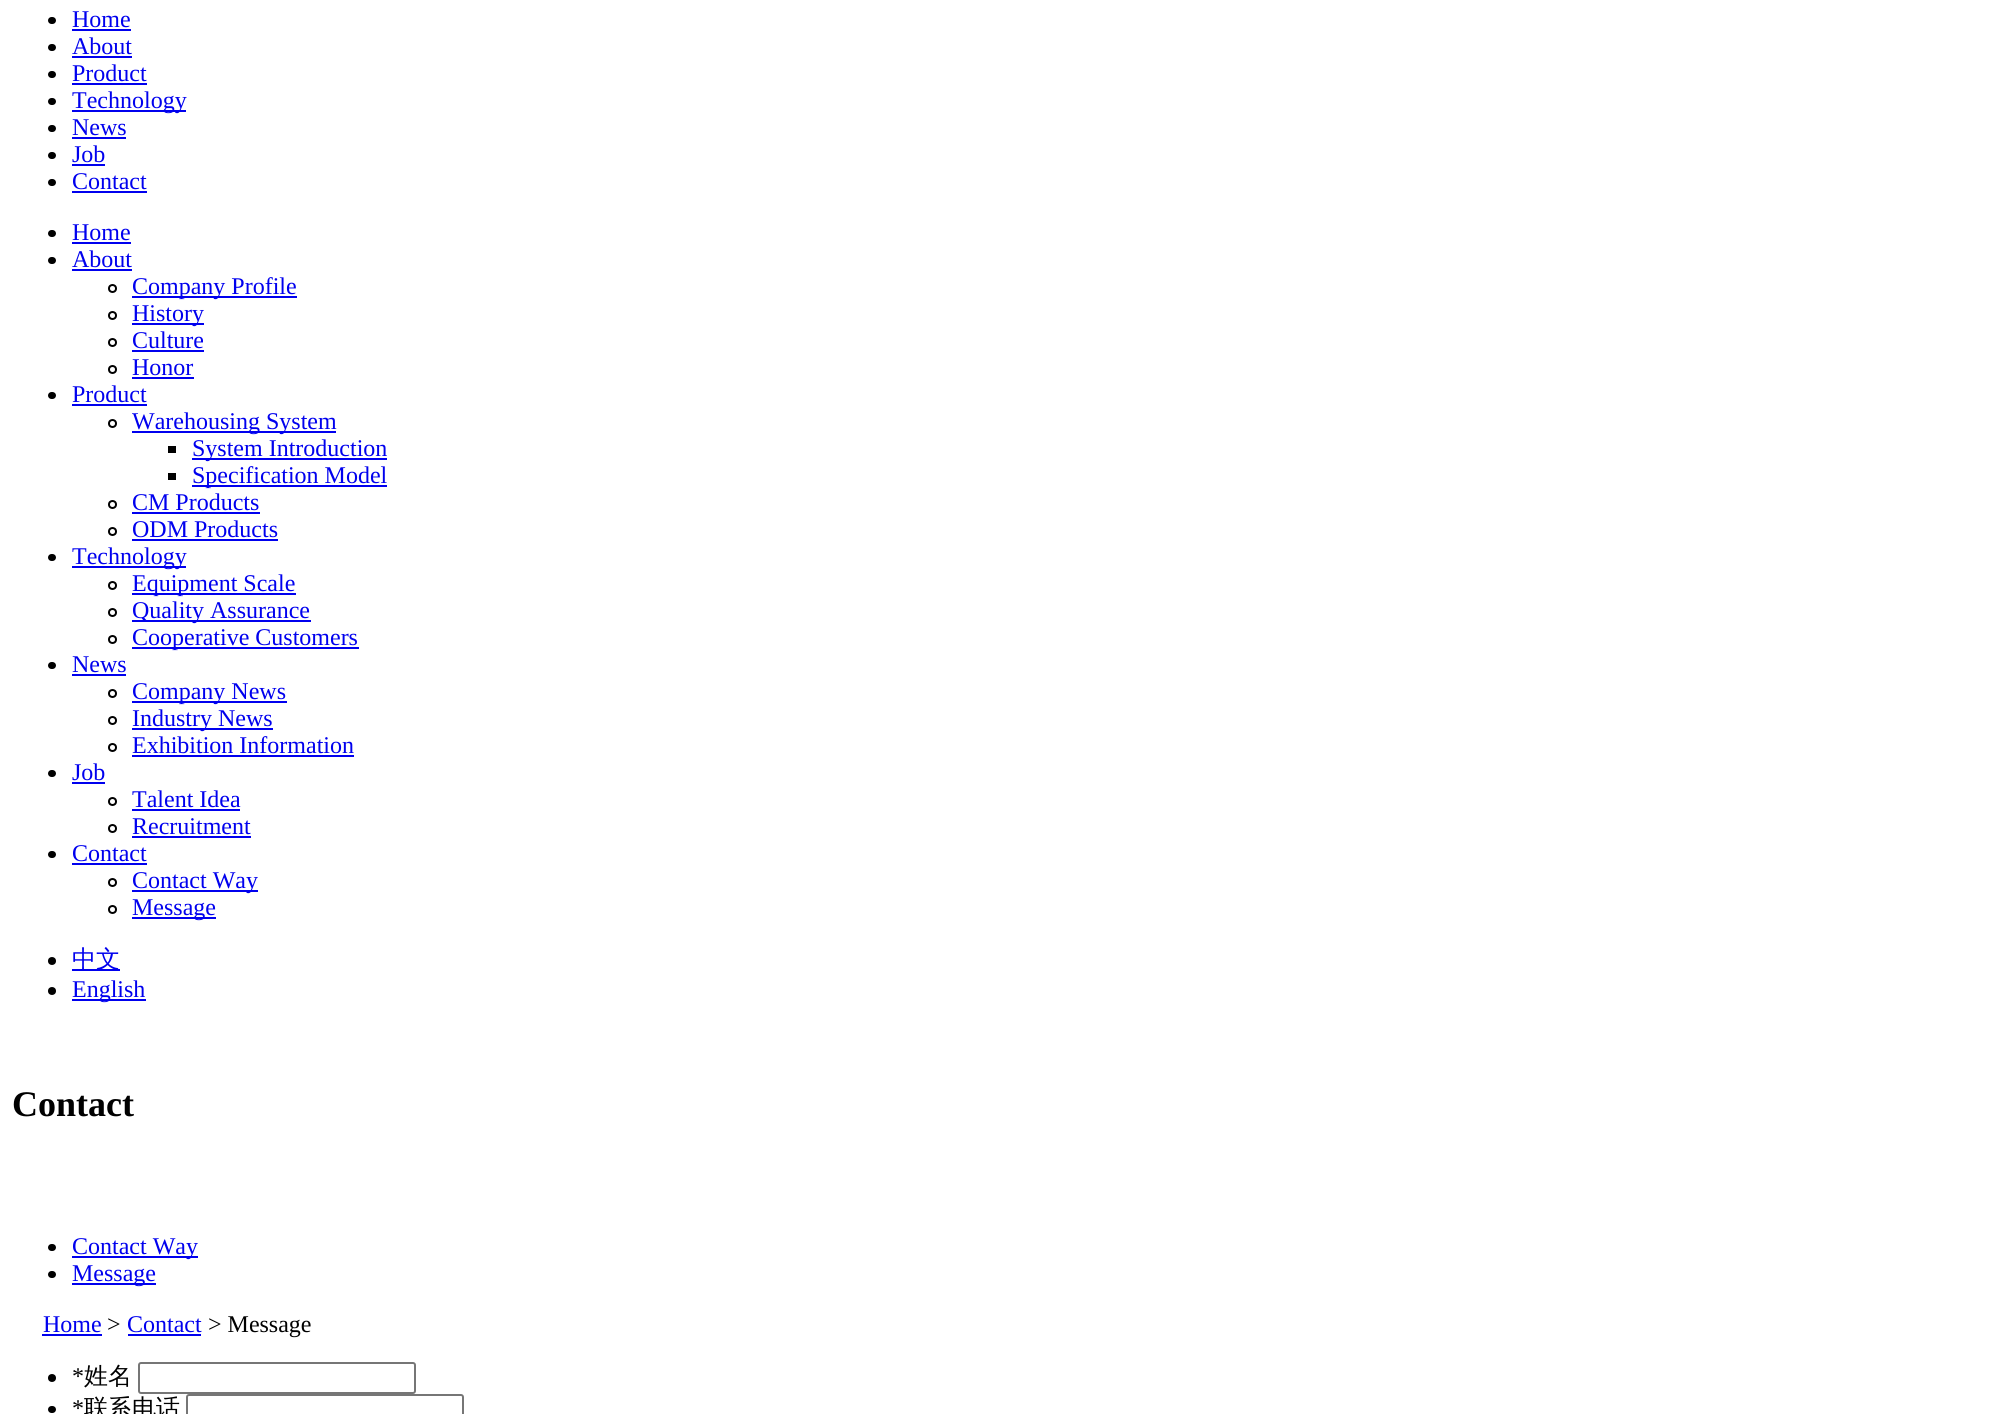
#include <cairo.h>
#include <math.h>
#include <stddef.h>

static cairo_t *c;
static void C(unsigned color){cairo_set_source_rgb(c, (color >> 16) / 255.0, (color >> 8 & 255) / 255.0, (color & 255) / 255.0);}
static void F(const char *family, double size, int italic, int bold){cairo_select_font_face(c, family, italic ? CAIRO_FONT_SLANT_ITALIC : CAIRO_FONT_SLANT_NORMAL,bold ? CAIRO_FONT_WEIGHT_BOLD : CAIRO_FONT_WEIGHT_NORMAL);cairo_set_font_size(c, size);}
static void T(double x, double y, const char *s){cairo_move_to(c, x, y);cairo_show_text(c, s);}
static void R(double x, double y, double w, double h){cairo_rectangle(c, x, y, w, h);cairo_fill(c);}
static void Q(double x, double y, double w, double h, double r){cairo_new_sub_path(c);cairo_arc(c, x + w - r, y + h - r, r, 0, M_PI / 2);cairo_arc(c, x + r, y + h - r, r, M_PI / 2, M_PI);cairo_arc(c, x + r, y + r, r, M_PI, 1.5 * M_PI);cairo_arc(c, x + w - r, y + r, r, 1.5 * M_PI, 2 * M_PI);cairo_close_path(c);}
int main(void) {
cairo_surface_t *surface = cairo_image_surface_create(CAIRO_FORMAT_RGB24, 2007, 1414);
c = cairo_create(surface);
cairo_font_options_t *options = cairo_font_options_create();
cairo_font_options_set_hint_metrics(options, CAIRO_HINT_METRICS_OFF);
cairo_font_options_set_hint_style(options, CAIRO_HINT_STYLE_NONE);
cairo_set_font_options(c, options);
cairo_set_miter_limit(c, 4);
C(0xffffff);
cairo_paint(c);
C(0x000000);
Q(48,17,8,7,3.5);
cairo_fill(c);
F("Liberation Serif",24,0,0);
C(0x0000ee);
T(72,27,"Home");
R(72,29,59,2);
C(0x000000);
Q(48,44,8,7,3.5);
cairo_fill(c);
C(0x0000ee);
T(72,54,"About");
R(72,56,60,2);
C(0x000000);
Q(48,71,8,7,3.5);
cairo_fill(c);
C(0x0000ee);
T(72,81,"Product");
R(72,83,75,2);
C(0x000000);
Q(48,98,8,7,3.5);
cairo_fill(c);
C(0x0000ee);
R(72,110,114,2);
T(72,108,"Technology");
C(0x000000);
Q(48,125,8,7,3.5);
cairo_fill(c);
C(0x0000ee);
T(72,135,"News");
R(72,137,54,2);
C(0x000000);
Q(48,152,8,7,3.5);
cairo_fill(c);
C(0x0000ee);
T(72,162,"Job");
R(72,164,33,2);
C(0x000000);
Q(48,179,8,7,3.5);
cairo_fill(c);
C(0x0000ee);
T(72,189,"Contact");
R(72,191,75,2);
C(0x000000);
Q(48,230,8,7,3.5);
cairo_fill(c);
C(0x0000ee);
T(72,240,"Home");
R(72,242,59,2);
C(0x000000);
Q(48,257,8,7,3.5);
cairo_fill(c);
C(0x0000ee);
T(72,267,"About");
R(72,269,60,2);
cairo_new_path(c);
cairo_arc(c,112.5,288.5,3.5,0,2 * M_PI);
C(0x000000);
cairo_stroke(c);
C(0x0000ee);
R(132,296,165,2);
T(132,294,"Company Profile");
cairo_new_path(c);
cairo_arc(c,112.5,315.5,3.5,0,2 * M_PI);
C(0x000000);
cairo_stroke(c);
C(0x0000ee);
R(132,323,72,2);
T(132,321,"History");
cairo_new_path(c);
cairo_arc(c,112.5,342.5,3.5,0,2 * M_PI);
C(0x000000);
cairo_stroke(c);
C(0x0000ee);
T(132,348,"Culture");
R(132,350,72,2);
cairo_new_path(c);
cairo_arc(c,112.5,369.5,3.5,0,2 * M_PI);
C(0x000000);
cairo_stroke(c);
C(0x0000ee);
T(132,375,"Honor");
R(132,377,62,2);
C(0x000000);
Q(48,392,8,7,3.5);
cairo_fill(c);
C(0x0000ee);
T(72,402,"Product");
R(72,404,75,2);
cairo_new_path(c);
cairo_arc(c,112.5,423.5,3.5,0,2 * M_PI);
C(0x000000);
cairo_stroke(c);
C(0x0000ee);
R(132,431,204,2);
T(132,429,"Warehousing System");
C(0x000000);
R(168,446,8,7);
C(0x0000ee);
R(192,458,195,2);
T(192,456,"System Introduction");
C(0x000000);
R(168,473,8,7);
C(0x0000ee);
R(192,485,195,2);
T(192,483,"Specification Model");
cairo_new_path(c);
cairo_arc(c,112.5,504.5,3.5,0,2 * M_PI);
C(0x000000);
cairo_stroke(c);
C(0x0000ee);
T(132,510,"CM Products");
R(132,512,128,2);
cairo_new_path(c);
cairo_arc(c,112.5,531.5,3.5,0,2 * M_PI);
C(0x000000);
cairo_stroke(c);
C(0x0000ee);
T(132,537,"ODM Products");
R(132,539,146,2);
C(0x000000);
Q(48,554,8,7,3.5);
cairo_fill(c);
C(0x0000ee);
R(72,566,114,2);
T(72,564,"Technology");
cairo_new_path(c);
cairo_arc(c,112.5,585.5,3.5,0,2 * M_PI);
C(0x000000);
cairo_stroke(c);
C(0x0000ee);
R(132,593,164,2);
T(132,591,"Equipment Scale");
cairo_new_path(c);
cairo_arc(c,112.5,612.5,3.5,0,2 * M_PI);
C(0x000000);
cairo_stroke(c);
C(0x0000ee);
R(132,620,179,2);
T(132,618,"Quality Assurance");
cairo_new_path(c);
cairo_arc(c,112.5,639.5,3.5,0,2 * M_PI);
C(0x000000);
cairo_stroke(c);
C(0x0000ee);
R(132,647,227,2);
T(132,645,"Cooperative Customers");
C(0x000000);
Q(48,662,8,7,3.5);
cairo_fill(c);
C(0x0000ee);
T(72,672,"News");
R(72,674,54,2);
cairo_new_path(c);
cairo_arc(c,112.5,693.5,3.5,0,2 * M_PI);
C(0x000000);
cairo_stroke(c);
C(0x0000ee);
R(132,701,155,2);
T(132,699,"Company News");
cairo_new_path(c);
cairo_arc(c,112.5,720.5,3.5,0,2 * M_PI);
C(0x000000);
cairo_stroke(c);
C(0x0000ee);
R(132,728,141,2);
T(132,726,"Industry News");
cairo_new_path(c);
cairo_arc(c,112.5,747.5,3.5,0,2 * M_PI);
C(0x000000);
cairo_stroke(c);
C(0x0000ee);
T(132,753,"Exhibition Information");
R(132,755,222,2);
C(0x000000);
Q(48,770,8,7,3.5);
cairo_fill(c);
C(0x0000ee);
T(72,780,"Job");
R(72,782,33,2);
cairo_new_path(c);
cairo_arc(c,112.5,801.5,3.5,0,2 * M_PI);
C(0x000000);
cairo_stroke(c);
C(0x0000ee);
T(132,807,"Talent Idea");
R(132,809,108,2);
cairo_new_path(c);
cairo_arc(c,112.5,828.5,3.5,0,2 * M_PI);
C(0x000000);
cairo_stroke(c);
C(0x0000ee);
T(132,834,"Recruitment");
R(132,836,119,2);
C(0x000000);
Q(48,851,8,7,3.5);
cairo_fill(c);
C(0x0000ee);
T(72,861,"Contact");
R(72,863,75,2);
cairo_new_path(c);
cairo_arc(c,112.5,882.5,3.5,0,2 * M_PI);
C(0x000000);
cairo_stroke(c);
C(0x0000ee);
R(132,890,126,2);
T(132,888,"Contact Way");
cairo_new_path(c);
cairo_arc(c,112.5,909.5,3.5,0,2 * M_PI);
C(0x000000);
cairo_stroke(c);
C(0x0000ee);
R(132,917,84,2);
T(132,915,"Message");
C(0x000000);
cairo_new_path(c);
cairo_arc(c,52,961,4,0,2 * M_PI);
cairo_fill(c);
C(0x0000ee);
R(72,969,48,2);
F("WenQuanYi Zen Hei Medium",24,0,0);
T(72,967,"中文");
C(0x000000);
cairo_new_path(c);
cairo_arc(c,52,991,4,0,2 * M_PI);
cairo_fill(c);
C(0x0000ee);
R(72,999,74,2);
F("Liberation Serif",24,0,0);
T(72,997,"English");
F("Liberation Serif",36,0,1);
C(0x000000);
T(12,1116,"Contact");
Q(48,1244,8,7,3.5);
cairo_fill(c);
C(0x0000ee);
R(72,1256,126,2);
F("Liberation Serif",24,0,0);
T(72,1254,"Contact Way");
C(0x000000);
Q(48,1271,8,7,3.5);
cairo_fill(c);
C(0x0000ee);
R(72,1283,84,2);
T(72,1281,"Message");
T(43,1332,"Home");
R(42,1334,60,2);
C(0x000000);
T(107,1332,">");
C(0x0000ee);
T(127,1332,"Contact");
R(128,1334,73,2);
C(0x000000);
T(208,1332,"> Message");
cairo_new_path(c);
cairo_arc(c,52,1378,4,0,2 * M_PI);
cairo_fill(c);
T(72,1384,"*");
F("WenQuanYi Zen Hei Medium",24,0,0);
T(84,1384,"姓名");
Q(139,1363,276,30,2);
C(0x767676);
cairo_stroke(c);
C(0x000000);
Q(48,1406,8,7,3.5);
cairo_fill(c);
F("Liberation Serif",24,0,0);
T(72,1416,"*");
F("WenQuanYi Zen Hei Medium",24,0,0);
T(84,1416,"联系电话");
Q(187,1395,276,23,2);
C(0x767676);
cairo_stroke(c);
cairo_surface_write_to_png(surface, "o.png");
cairo_font_options_destroy(options);
cairo_destroy(c);
cairo_surface_destroy(surface);
return 0;
}
